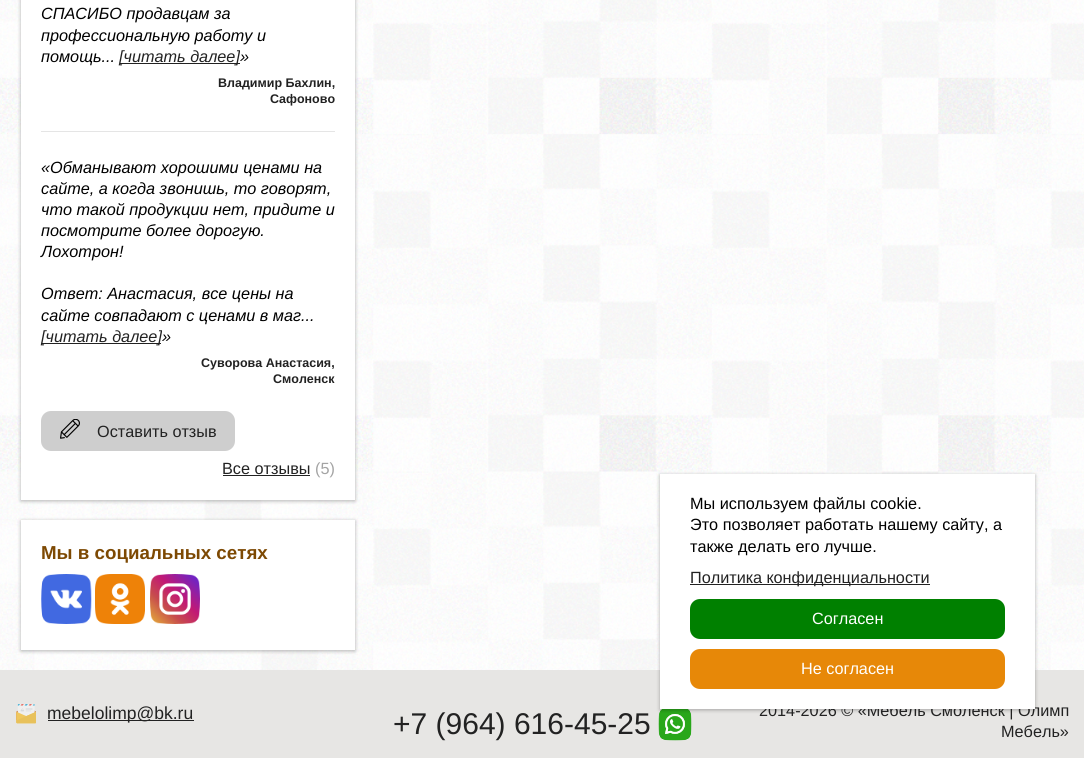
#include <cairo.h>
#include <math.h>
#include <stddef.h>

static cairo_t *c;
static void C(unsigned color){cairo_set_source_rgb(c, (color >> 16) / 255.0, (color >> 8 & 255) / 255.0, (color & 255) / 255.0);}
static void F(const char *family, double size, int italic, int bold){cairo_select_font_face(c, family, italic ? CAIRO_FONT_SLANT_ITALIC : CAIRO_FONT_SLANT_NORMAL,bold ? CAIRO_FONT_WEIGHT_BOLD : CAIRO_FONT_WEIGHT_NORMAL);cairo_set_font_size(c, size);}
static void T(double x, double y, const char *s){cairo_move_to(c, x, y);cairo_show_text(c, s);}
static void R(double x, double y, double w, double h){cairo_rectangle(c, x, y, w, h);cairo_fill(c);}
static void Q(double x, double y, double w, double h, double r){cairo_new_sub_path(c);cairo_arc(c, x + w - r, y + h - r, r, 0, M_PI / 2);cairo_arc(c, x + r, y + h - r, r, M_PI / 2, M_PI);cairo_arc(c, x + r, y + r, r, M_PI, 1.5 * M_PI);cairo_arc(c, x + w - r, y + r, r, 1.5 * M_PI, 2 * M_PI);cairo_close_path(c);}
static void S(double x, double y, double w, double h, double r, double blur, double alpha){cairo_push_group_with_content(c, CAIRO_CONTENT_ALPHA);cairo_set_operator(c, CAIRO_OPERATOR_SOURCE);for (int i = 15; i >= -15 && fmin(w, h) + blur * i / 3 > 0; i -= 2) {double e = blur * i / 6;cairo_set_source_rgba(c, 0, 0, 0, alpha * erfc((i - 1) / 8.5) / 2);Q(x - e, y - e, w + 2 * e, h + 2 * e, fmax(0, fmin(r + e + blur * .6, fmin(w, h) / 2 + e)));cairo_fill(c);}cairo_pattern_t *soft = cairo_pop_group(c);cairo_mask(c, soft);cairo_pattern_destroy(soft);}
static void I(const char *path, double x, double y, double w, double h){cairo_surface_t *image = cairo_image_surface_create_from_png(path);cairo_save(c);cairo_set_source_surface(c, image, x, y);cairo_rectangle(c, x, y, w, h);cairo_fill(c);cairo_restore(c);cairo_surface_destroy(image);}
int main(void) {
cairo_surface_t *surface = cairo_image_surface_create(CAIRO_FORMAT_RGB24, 1084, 758);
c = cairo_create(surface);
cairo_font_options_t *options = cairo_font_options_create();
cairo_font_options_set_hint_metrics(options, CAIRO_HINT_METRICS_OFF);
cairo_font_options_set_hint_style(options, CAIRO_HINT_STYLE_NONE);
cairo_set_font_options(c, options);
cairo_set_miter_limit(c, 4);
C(0xffffff);
cairo_paint(c);
I("1.png",0,0,1084,670);
C(0x000000);
S(21,-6,334,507,0,2,.3);
C(0xffffff);
R(21,0,334,500);
F("Liberation Sans",16.25,1,0);
C(0x000000);
T(41,19,"СПАСИБО продавцам за");
T(41,41,"профессиональную работу и");
T(41,62,"помощь...");
C(0x222222);
R(120,63,120,1);
T(119,62,"[читать далее]");
C(0x000000);
T(240,62,"»");
F("Liberation Sans",12.5,0,1);
C(0x222222);
T(218,87,"Владимир Бахлин,");
T(270,103,"Сафоново");
C(0xe5e5e5);
R(41,131,294,1);
F("Liberation Sans",16.25,1,0);
C(0x000000);
T(41,173,"«Обманывают хорошими ценами на");
T(41,194,"сайте, а когда звонишь, то говорят,");
T(41,215,"что такой продукции нет, придите и");
T(41,236,"посмотрите более дорогую.");
T(41,257,"Лохотрон!");
T(41,299,"Ответ: Анастасия, все цены на");
T(41,321,"сайте совпадают с ценами в маг...");
C(0x222222);
R(41,343,120,1);
T(41,342,"[читать далее]");
C(0x000000);
T(162,342,"»");
F("Liberation Sans",12.5,0,1);
C(0x222222);
T(201,367,"Суворова Анастасия,");
T(273,383,"Смоленск");
C(0xcecece);
Q(41,411,194,40,10);
cairo_fill(c);
I("2.png",60,419,20,20);
F("Liberation Sans",16.25,0,0);
C(0x222222);
T(97,437,"Оставить отзыв");
T(222,474,"Все отзывы");
R(223,475,87,1);
C(0xa4a4a4);
T(315,474,"(5)");
C(0x000000);
S(21,521,334,130,0,2,.3);
C(0xffffff);
R(21,520,334,130);
F("Liberation Sans",18.75,0,1);
C(0x7d4903);
T(41,559,"Мы в социальных сетях");
I("3.png",41,574,51,50);
I("4.png",95,574,50,50);
I("5.png",150,574,50,50);
C(0xe7e6e4);
R(0,670,1084,88);
I("7.png",658,709,34,32);
C(0x000000);
S(660,475,375,235,0,2,.3);
F("Liberation Sans",16.25,0,0);
C(0x222222);
T(759,716,"2014-2026 © «Мебель Смоленск | Олимп");
C(0xffffff);
R(660,474,375,235);
C(0x000000);
T(690,509,"Мы используем файлы cookie.");
T(690,530,"Это позволяет работать нашему сайту, а");
T(690,552,"также делать его лучше.");
C(0x222222);
R(690,584,240,1);
T(690,583,"Политика конфиденциальности");
C(0x008000);
Q(690,599,315,40,10);
cairo_fill(c);
C(0xffffff);
T(812,624,"Согласен");
C(0xe78808);
Q(690,649,315,40,10);
cairo_fill(c);
C(0xffffff);
T(801,674,"Не согласен");
I("6.png",16,704,20,20);
C(0x222222);
R(48,720,146,1);
F("Liberation Sans",17.5,0,0);
T(47,719,"mebelolimp@bk.ru");
F("Liberation Sans",30,0,0);
T(393,734,"+7 (964) 616-45-25");
F("Liberation Sans",16.25,0,0);
T(1001,737,"Мебель»");
cairo_surface_write_to_png(surface, "o.png");
cairo_font_options_destroy(options);
cairo_destroy(c);
cairo_surface_destroy(surface);
return 0;
}
